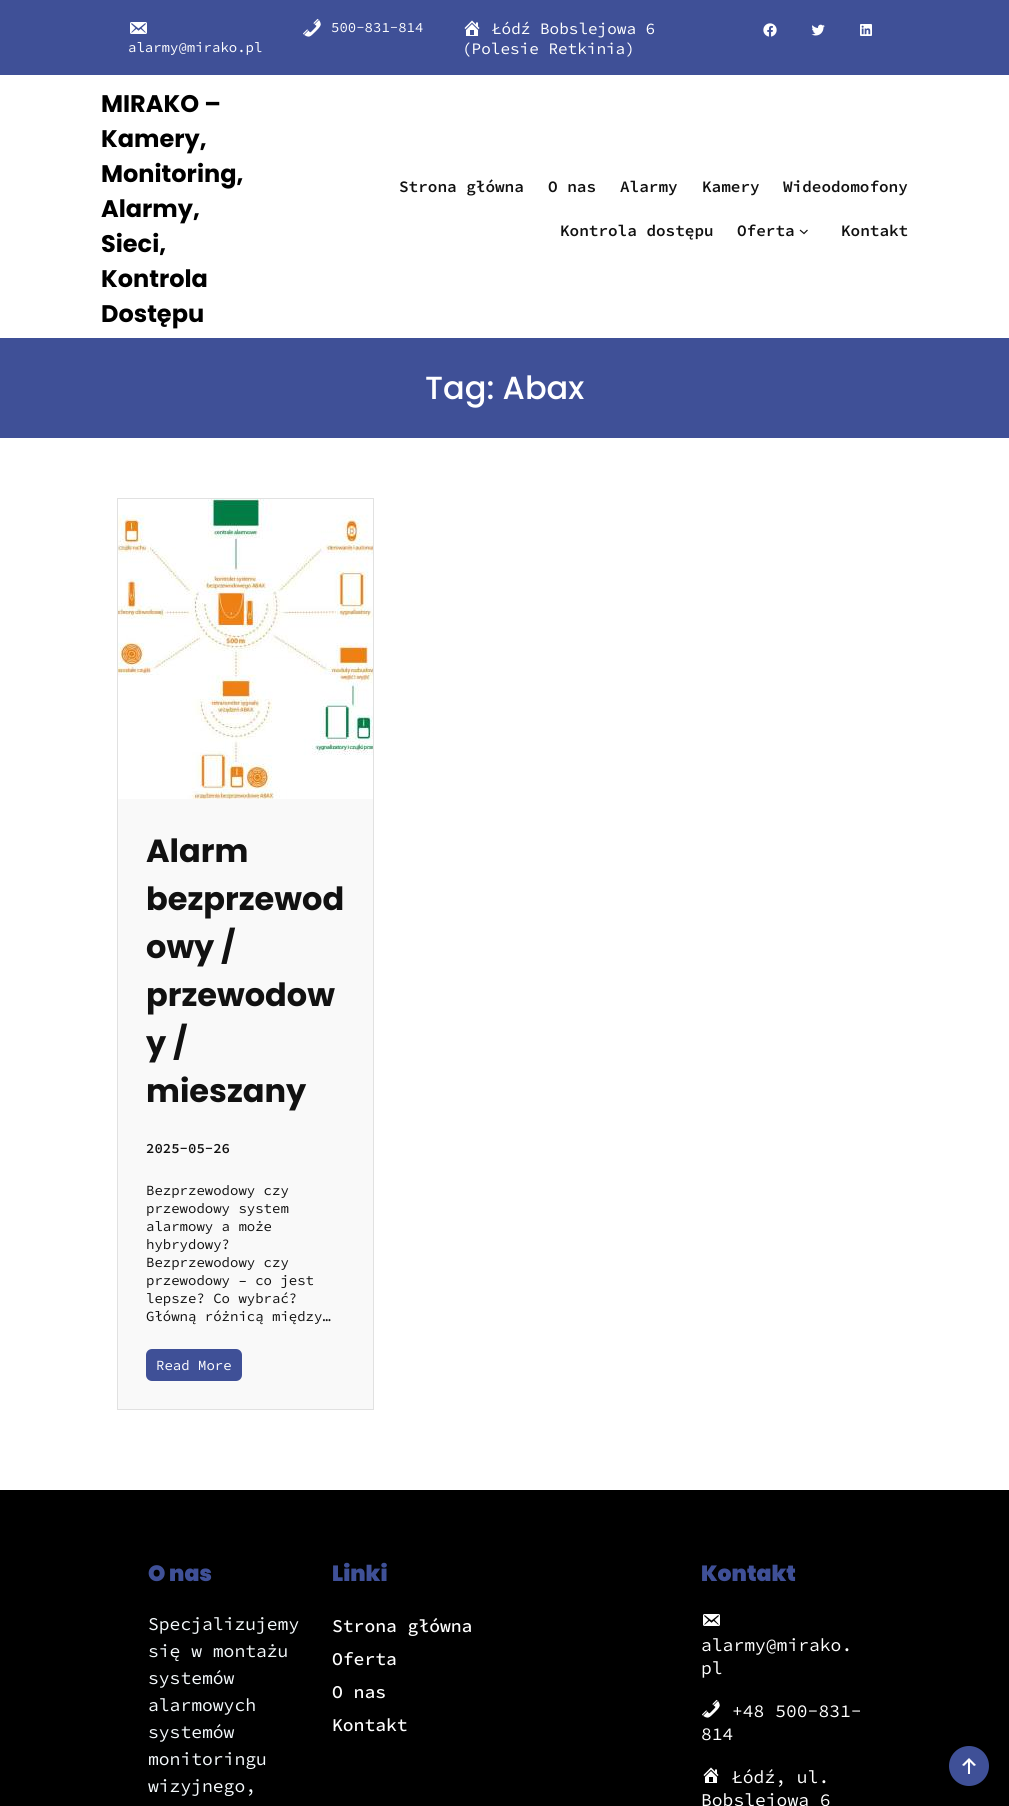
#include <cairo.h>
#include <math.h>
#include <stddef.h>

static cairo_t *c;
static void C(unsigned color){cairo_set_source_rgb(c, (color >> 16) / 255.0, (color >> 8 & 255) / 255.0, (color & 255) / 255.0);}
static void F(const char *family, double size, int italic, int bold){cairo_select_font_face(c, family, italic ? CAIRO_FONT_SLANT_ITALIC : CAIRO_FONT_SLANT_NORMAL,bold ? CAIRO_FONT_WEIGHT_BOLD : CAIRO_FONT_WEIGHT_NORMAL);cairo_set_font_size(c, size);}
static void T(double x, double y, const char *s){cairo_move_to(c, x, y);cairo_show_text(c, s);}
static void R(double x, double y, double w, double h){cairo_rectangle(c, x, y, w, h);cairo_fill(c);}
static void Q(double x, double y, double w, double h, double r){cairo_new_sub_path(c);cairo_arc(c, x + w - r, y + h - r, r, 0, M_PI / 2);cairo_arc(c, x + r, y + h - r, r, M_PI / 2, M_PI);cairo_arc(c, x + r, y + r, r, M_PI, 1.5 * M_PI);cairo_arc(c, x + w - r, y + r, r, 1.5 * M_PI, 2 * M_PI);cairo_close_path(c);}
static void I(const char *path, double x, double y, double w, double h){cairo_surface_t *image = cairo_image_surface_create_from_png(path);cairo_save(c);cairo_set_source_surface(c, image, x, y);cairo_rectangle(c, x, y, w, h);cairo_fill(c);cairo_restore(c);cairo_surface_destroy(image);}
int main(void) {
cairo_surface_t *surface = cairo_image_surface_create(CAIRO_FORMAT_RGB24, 1009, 1806);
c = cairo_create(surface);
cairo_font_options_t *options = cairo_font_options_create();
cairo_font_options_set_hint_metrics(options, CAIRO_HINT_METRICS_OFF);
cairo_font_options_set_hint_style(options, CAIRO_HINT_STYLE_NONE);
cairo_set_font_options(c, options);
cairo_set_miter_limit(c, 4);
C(0xffffff);
cairo_paint(c);
C(0x3f5097);
R(0,0,1009,75);
I("1.png",303,18,18,19);
F("Source Code Pro",14,0,0);
C(0xffffff);
T(331,32,"500-831-814");
I("2.png",464,20,16,16);
F("Source Code Pro",16,0,0);
T(492,34,"Łódź Bobslejowa 6");
T(462,54,"(Polesie Retkinia)");
I("3.png",763,23,14,14);
I("4.png",811,24,14,12);
I("5.png",860,24,12,12);
I("6.png",130,22,17,12);
F("Source Code Pro",14,0,0);
T(128,52,"alarmy@mirako.pl");
F("Poppins",24,0,1);
C(0x000000);
T(101,112,"MIRAKO –");
T(101,147,"Kamery,");
T(101,182,"Monitoring,");
T(101,217,"Alarmy,");
T(101,252,"Sieci,");
T(101,287,"Kontrola");
T(101,322,"Dostępu");
F("Source Code Pro SemiBold",16,0,0);
C(0x111111);
T(399,192,"Strona główna");
T(548,192,"O nas");
T(620,192,"Alarmy");
T(702,192,"Kamery");
T(783,192,"Wideodomofony");
T(560,236,"Kontrola dostępu");
T(737,236,"Oferta");
cairo_new_path(c);
cairo_move_to(c,800,230);
cairo_line_to(c,804,233.5);
cairo_line_to(c,807.5,230);
cairo_set_line_width(c,1.2);
cairo_stroke(c);
T(841,236,"Kontakt");
C(0x3f5097);
R(0,338,1009,100);
F("Poppins Medium",32,0,0);
C(0xffffff);
T(425,399,"Tag: Abax");
cairo_rectangle(c,117.5,498.5,256,911);
C(0xe1e1e1);
cairo_set_line_width(c,1);
cairo_stroke(c);
I("7.png",118,499,255,300);
C(0xf9f9f9);
R(118,799,255,610);
F("Poppins",32,0,1);
C(0x111111);
T(146,862,"Alarm");
T(146,910,"bezprzewod");
T(146,958,"owy /");
T(146,1006,"przewodow");
T(146,1054,"y /");
T(146,1102,"mieszany");
F("Source Code Pro SemiBold",14,0,0);
T(146,1153,"2025-05-26");
F("Source Code Pro",14,0,0);
T(146,1195,"Bezprzewodowy czy");
T(146,1213,"przewodowy system");
T(146,1231,"alarmowy a może");
T(146,1249,"hybrydowy?");
T(146,1267,"Bezprzewodowy czy");
T(146,1285,"przewodowy – co jest");
T(146,1303,"lepsze? Co wybrać?");
T(146,1321,"Główną różnicą między…");
C(0x3f5097);
Q(146,1349,96,32,6);
cairo_fill(c);
C(0xffffff);
T(156,1370,"Read More");
C(0x000000);
R(0,1490,1009,316);
F("Poppins Black",22,0,0);
C(0x3f5097);
T(148,1581,"O nas");
F("Source Code Pro",18,0,0);
C(0xf5fafd);
T(148,1630,"Specjalizujemy");
T(148,1657,"się w montażu");
T(148,1684,"systemów");
T(148,1711,"alarmowych");
T(148,1738,"systemów");
T(148,1765,"monitoringu");
T(148,1792,"wizyjnego,");
F("Poppins Black",22,0,0);
C(0x3f5097);
T(332,1581,"Linki");
F("Source Code Pro Medium",18,0,0);
C(0xffffff);
T(332,1632,"Strona główna");
T(332,1665,"Oferta");
T(332,1698,"O nas");
T(332,1731,"Kontakt");
F("Poppins Black",22,0,0);
C(0x3f5097);
T(701,1581,"Kontakt");
I("8.png",703,1614,17,12);
F("Source Code Pro",18,0,0);
C(0xffffff);
T(701,1651,"alarmy@mirako.");
T(701,1674,"pl");
I("9.png",702,1699,18,19);
T(732,1717,"+48 500-831-");
T(701,1740,"814");
I("10.png",703,1767,16,16);
T(732,1783,"Łódź, ul.");
T(701,1806,"Bobslejowa 6");
C(0x3f5097);
cairo_new_path(c);
cairo_arc(c,969,1766,20,0,2 * M_PI);
cairo_fill(c);
I("11.png",962,1758,14,16);
cairo_surface_write_to_png(surface, "o.png");
cairo_font_options_destroy(options);
cairo_destroy(c);
cairo_surface_destroy(surface);
return 0;
}
